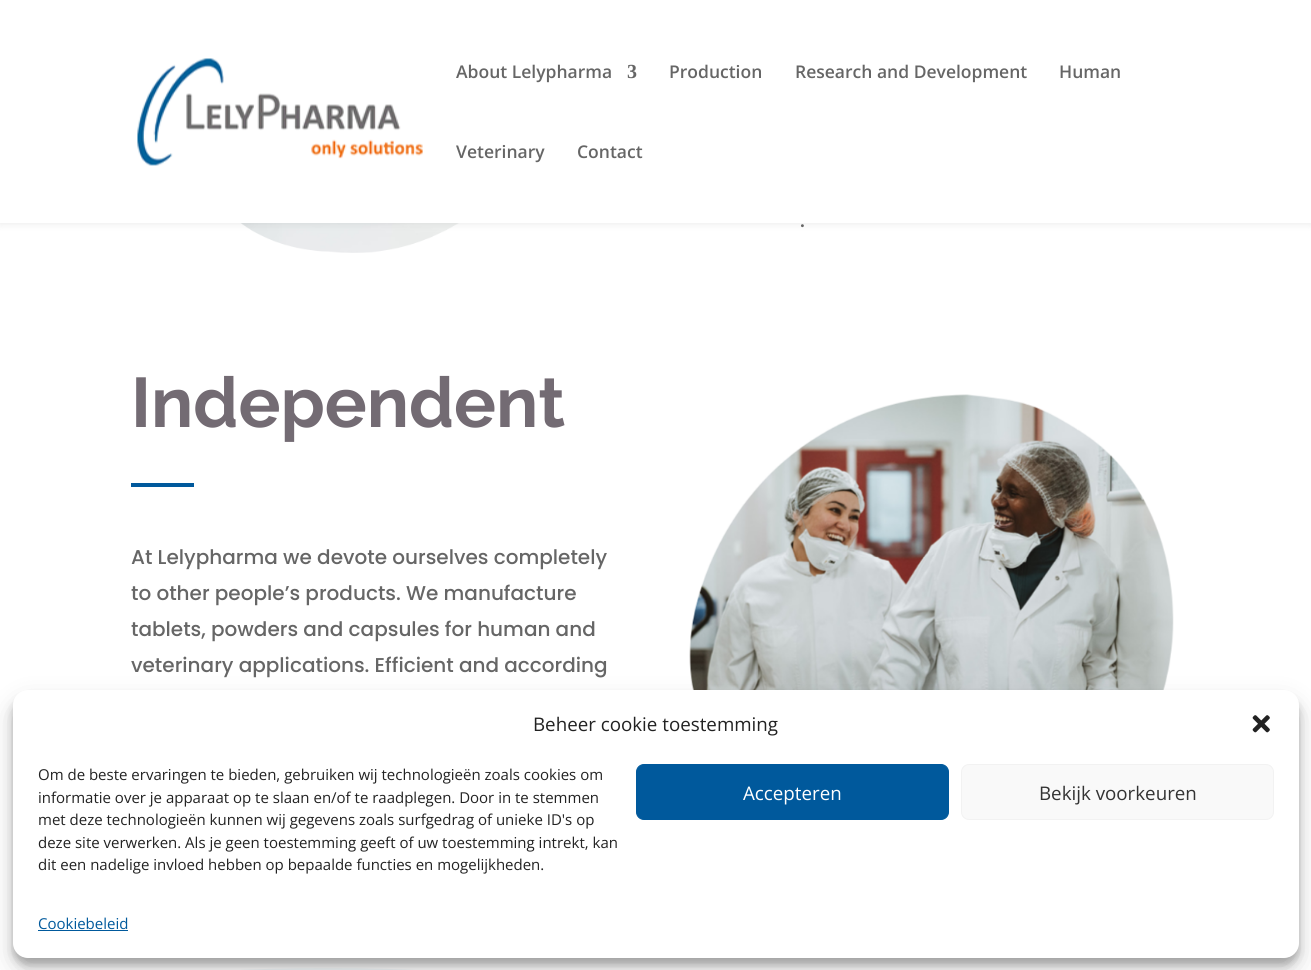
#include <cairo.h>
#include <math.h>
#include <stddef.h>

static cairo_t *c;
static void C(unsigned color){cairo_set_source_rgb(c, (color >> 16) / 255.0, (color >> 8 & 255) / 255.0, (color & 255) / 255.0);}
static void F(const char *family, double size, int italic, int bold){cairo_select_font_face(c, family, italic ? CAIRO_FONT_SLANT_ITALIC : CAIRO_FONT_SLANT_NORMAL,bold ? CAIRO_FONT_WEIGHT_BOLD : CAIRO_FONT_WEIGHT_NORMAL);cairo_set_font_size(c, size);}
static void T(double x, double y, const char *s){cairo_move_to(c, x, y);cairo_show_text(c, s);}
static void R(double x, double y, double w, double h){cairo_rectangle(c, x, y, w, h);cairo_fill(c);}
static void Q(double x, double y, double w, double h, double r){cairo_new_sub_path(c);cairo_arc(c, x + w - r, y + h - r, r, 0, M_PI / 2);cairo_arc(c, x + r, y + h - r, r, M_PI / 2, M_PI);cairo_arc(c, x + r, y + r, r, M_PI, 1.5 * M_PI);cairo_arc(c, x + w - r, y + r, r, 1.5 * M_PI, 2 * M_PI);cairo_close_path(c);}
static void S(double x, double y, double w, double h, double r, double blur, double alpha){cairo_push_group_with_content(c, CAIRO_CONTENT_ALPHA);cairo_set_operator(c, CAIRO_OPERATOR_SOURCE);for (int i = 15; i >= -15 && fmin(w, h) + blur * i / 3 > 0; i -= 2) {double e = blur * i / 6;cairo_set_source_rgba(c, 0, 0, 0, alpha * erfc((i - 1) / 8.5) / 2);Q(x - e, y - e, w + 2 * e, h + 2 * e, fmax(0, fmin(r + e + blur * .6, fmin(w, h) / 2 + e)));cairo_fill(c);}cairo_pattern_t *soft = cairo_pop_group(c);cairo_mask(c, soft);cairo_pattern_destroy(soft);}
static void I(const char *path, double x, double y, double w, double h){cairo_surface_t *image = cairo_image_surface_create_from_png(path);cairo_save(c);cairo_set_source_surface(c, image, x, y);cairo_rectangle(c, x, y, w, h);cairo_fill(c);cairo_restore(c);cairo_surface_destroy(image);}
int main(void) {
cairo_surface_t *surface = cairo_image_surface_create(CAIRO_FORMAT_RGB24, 1311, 970);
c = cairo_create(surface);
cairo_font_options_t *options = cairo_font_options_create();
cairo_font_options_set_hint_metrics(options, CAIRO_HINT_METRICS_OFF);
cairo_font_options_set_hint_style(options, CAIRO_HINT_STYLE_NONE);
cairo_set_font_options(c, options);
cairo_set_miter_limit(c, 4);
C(0xffffff);
cairo_paint(c);
I("2.png",170,223,421,30);
C(0x000000);
S(0,0,1311,223,0,4.5,.1);
C(0xffffff);
R(0,0,1311,223);
I("1.png",137,58,286,108);
F("Open Sans SemiBold",17.5,0,0);
C(0x666666);
T(456,78,"About Lelypharma");
F("Liberation Serif",20,0,1);
T(627,78,"3");
F("Open Sans SemiBold",17.5,0,0);
T(669,78,"Production");
T(795,78,"Research and Development");
T(1059,78,"Human");
T(456,158,"Veterinary");
T(577,158,"Contact");
F("Poppins Medium",20,0,0);
T(800,227,".");
F("Raleway",70,0,1);
C(0x736b73);
T(131,427,"Independent");
C(0x00599c);
R(131,483,63,4);
F("Poppins Medium",20,0,0);
C(0x666666);
T(131,564,"At Lelypharma we devote ourselves completely");
T(131,600,"to other people’s products. We manufacture");
T(131,636,"tablets, powders and capsules for human and");
T(131,672,"veterinary applications. Efficient and according");
I("3.png",689,394,485,296);
C(0xf3f9fb);
R(240,968,175,2);
cairo_save(c);
cairo_rectangle(c,0,943,1311,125);
cairo_clip(c);
C(0xffffff);
cairo_new_path(c);
cairo_move_to(c,328,968);
cairo_curve_to(c,164,968,82,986,0,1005);
cairo_line_to(c,0,942);
cairo_line_to(c,1311,942);
cairo_line_to(c,1311,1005);
cairo_curve_to(c,1229,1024,1147,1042,983,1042);
cairo_curve_to(c,656,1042,656,968,328,968);
cairo_close_path(c);
cairo_fill(c);
cairo_restore(c);
C(0x000000);
S(13,698,1286,267,15,4,.23);
S(13,703,1286,267,15,12.5,.19);
C(0xffffff);
Q(13,690,1286,268,15);
cairo_fill(c);
F("Open Sans",18.75,0,0);
C(0x222222);
T(533,731,"Beheer cookie toestemming");
I("4.png",1252,715,18,18);
F("Open Sans",15,0,0);
T(38,780,"Om de beste ervaringen te bieden, gebruiken wij technologieën zoals cookies om");
T(38,803,"informatie over je apparaat op te slaan en/of te raadplegen. Door in te stemmen");
T(38,825,"met deze technologieën kunnen wij gegevens zoals surfgedrag of unieke ID's op");
T(38,848,"deze site verwerken. Als je geen toestemming geeft of uw toestemming intrekt, kan");
T(38,870,"dit een nadelige invloed hebben op bepaalde functies en mogelijkheden.");
C(0x00599c);
Q(636.5,764.5,312,55,7.5);
cairo_fill_preserve(c);
cairo_set_line_width(c,1);
cairo_stroke(c);
F("Open Sans",18.75,0,0);
C(0xffffff);
T(743,800,"Accepteren");
C(0xf9f9f9);
Q(961.5,764.5,312,55,7.5);
cairo_fill_preserve(c);
C(0xf2f2f2);
cairo_stroke(c);
C(0x333333);
T(1039,800,"Bekijk voorkeuren");
F("Open Sans",15,0,0);
C(0x00599c);
T(38,929,"Cookiebeleid");
R(38,930,90,1);
cairo_surface_write_to_png(surface, "o.png");
cairo_font_options_destroy(options);
cairo_destroy(c);
cairo_surface_destroy(surface);
return 0;
}
